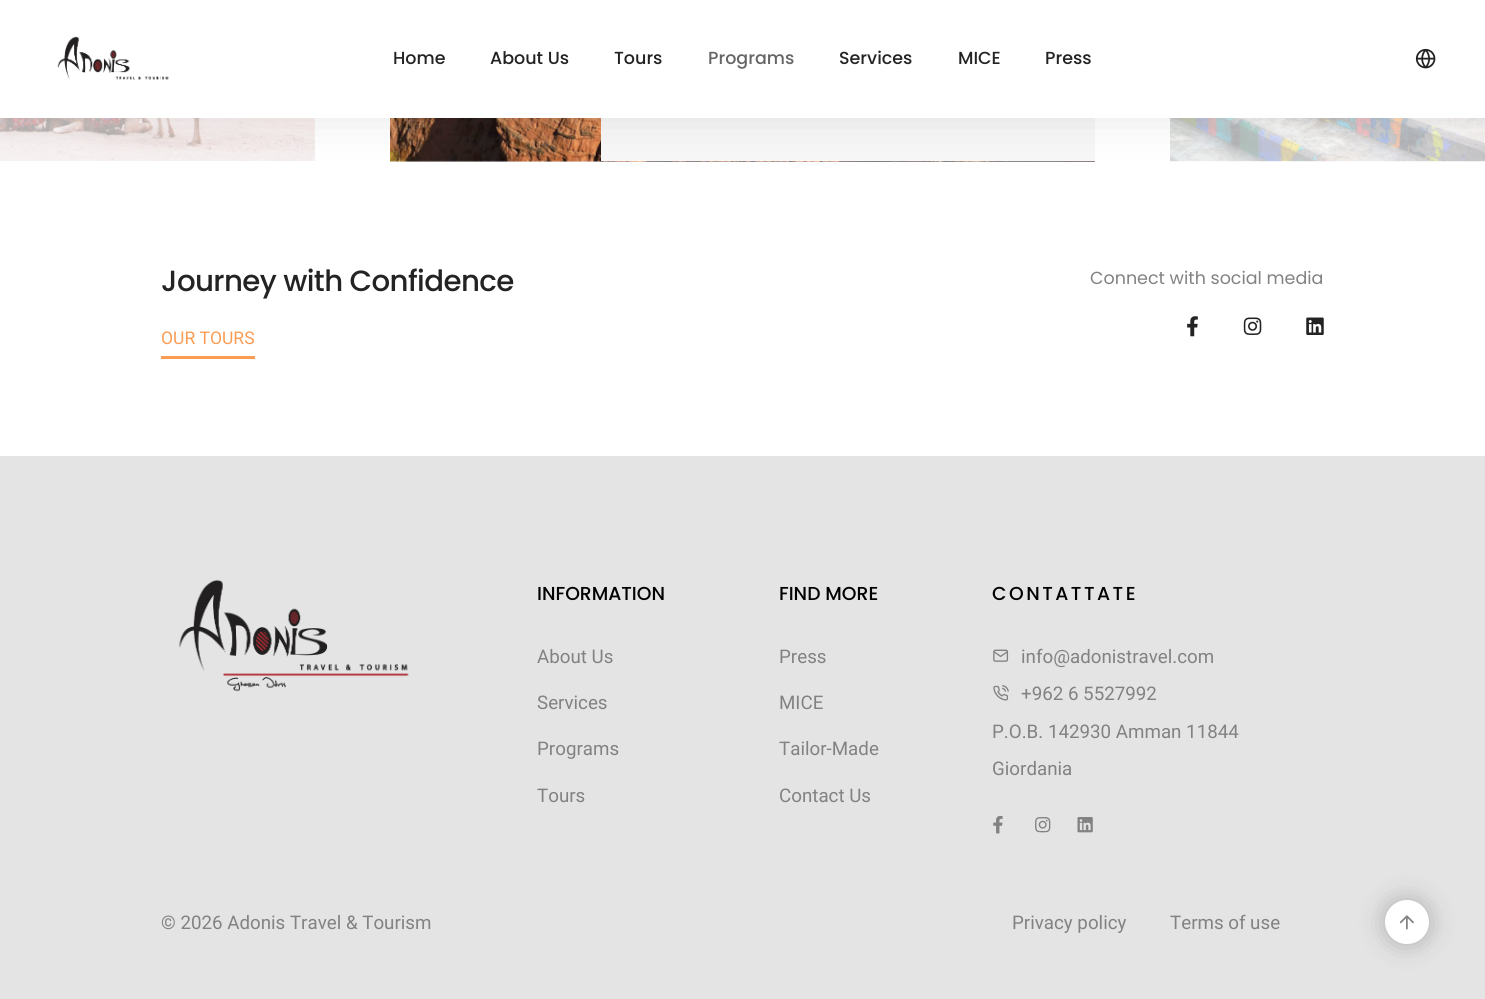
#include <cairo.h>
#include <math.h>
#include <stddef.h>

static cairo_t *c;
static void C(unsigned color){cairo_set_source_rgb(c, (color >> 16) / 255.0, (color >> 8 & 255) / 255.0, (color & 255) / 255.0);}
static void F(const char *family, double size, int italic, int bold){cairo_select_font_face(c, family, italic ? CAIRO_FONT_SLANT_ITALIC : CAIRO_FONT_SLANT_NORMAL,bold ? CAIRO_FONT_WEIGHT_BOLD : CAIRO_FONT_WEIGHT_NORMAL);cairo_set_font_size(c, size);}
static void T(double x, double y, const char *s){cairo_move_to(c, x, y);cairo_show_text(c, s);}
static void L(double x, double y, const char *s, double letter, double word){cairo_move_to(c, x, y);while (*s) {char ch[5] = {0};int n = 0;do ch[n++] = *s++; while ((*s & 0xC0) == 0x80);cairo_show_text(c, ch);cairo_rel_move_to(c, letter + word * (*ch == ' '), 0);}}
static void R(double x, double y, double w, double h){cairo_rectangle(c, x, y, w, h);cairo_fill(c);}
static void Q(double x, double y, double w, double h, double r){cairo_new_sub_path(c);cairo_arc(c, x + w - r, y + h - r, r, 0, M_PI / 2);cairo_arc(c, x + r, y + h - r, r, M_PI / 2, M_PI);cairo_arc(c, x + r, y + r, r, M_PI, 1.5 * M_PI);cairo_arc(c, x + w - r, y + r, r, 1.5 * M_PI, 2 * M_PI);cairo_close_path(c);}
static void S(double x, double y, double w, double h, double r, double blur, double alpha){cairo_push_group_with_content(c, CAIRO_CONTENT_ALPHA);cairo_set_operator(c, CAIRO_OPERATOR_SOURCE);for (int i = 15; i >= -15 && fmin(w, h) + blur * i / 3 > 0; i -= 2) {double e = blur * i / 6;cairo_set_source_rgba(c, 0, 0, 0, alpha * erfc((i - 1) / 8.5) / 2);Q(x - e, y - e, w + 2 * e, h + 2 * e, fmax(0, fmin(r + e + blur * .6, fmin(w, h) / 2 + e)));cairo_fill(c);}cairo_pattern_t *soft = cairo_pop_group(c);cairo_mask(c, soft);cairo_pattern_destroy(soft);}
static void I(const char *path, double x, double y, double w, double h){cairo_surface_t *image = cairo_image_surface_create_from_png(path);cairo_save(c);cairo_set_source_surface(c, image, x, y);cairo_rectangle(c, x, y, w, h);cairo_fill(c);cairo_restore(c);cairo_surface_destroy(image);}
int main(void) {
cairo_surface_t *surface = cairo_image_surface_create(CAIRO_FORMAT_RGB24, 1485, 999);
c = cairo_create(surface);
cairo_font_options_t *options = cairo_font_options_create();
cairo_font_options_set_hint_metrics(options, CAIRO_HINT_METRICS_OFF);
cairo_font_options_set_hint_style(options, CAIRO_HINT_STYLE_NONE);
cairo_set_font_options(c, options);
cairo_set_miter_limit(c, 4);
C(0xffffff);
cairo_paint(c);
I("3.png",0,118,315,43);
I("4.png",390,118,705,44);
C(0xf7f7f7);
R(601,118,494,43);
I("5.png",1170,118,315,44);
C(0x000000);
S(0,0,1485,118,0,22,.1);
C(0xffffff);
R(0,0,1485,118);
I("1.png",57,36,112,44);
F("Poppins Medium",17.5,0,0);
C(0x232323);
T(393,64,"Home");
T(490,64,"About Us");
T(614,64,"Tours");
C(0x656565);
T(708,64,"Programs");
C(0x232323);
T(839,64,"Services");
T(958,64,"MICE");
T(1045,64,"Press");
I("2.png",1415,48,21,21);
F("Poppins Medium",29.25,0,0);
L(161,291,"Journey with Confidence",-.6,0);
F("Roboto",17.5,0,0);
C(0xfb9c55);
T(161,344,"OUR TOURS");
R(161,356,94,3);
F("Poppins",17.5,0,0);
C(0x828282);
T(1090,284,"Connect with social media");
I("6.png",1187,316,11,21);
I("7.png",1243,317,19,18);
I("8.png",1306,317,18,18);
C(0xe4e4e4);
R(0,456,1485,543);
I("9.png",179,579,230,113);
F("Poppins Medium",18.75,0,0);
C(0x000000);
T(537,600,"INFORMATION");
F("Roboto",18.75,0,0);
C(0x828282);
T(537,663,"About Us");
T(537,709,"Services");
T(537,755,"Programs");
T(537,802,"Tours");
F("Poppins Medium",18.75,0,0);
C(0x000000);
T(779,600,"FIND MORE");
F("Roboto",18.75,0,0);
C(0x828282);
T(779,663,"Press");
T(779,709,"MICE");
T(779,755,"Tailor-Made");
T(779,802,"Contact Us");
F("Poppins Medium",18.75,0,0);
C(0x000000);
L(992,600,"CONTATTATE",2.5,0);
I("10.png",993,649,16,13);
F("Roboto",18.75,0,0);
C(0x828282);
T(1021,663,"info@adonistravel.com");
I("11.png",993,685,16,16);
T(1021,700,"+962 6 5527992");
T(992,738,"P.O.B. 142930 Amman 11844");
T(992,775,"Giordania");
I("12.png",993,815,10,19);
I("13.png",1035,817,16,16);
I("14.png",1077,817,16,16);
T(161,929,"© 2026 Adonis Travel & Tourism");
T(1012,929,"Privacy policy");
T(1170,929,"Terms of use");
C(0x171717);
S(1385,900,44,44,22,12.5,.25);
C(0xffffff);
cairo_arc(c,1407,922,22,0,2 * M_PI);
cairo_fill(c);
I("15.png",1399,915,15,15);
cairo_surface_write_to_png(surface, "o.png");
cairo_font_options_destroy(options);
cairo_destroy(c);
cairo_surface_destroy(surface);
return 0;
}
